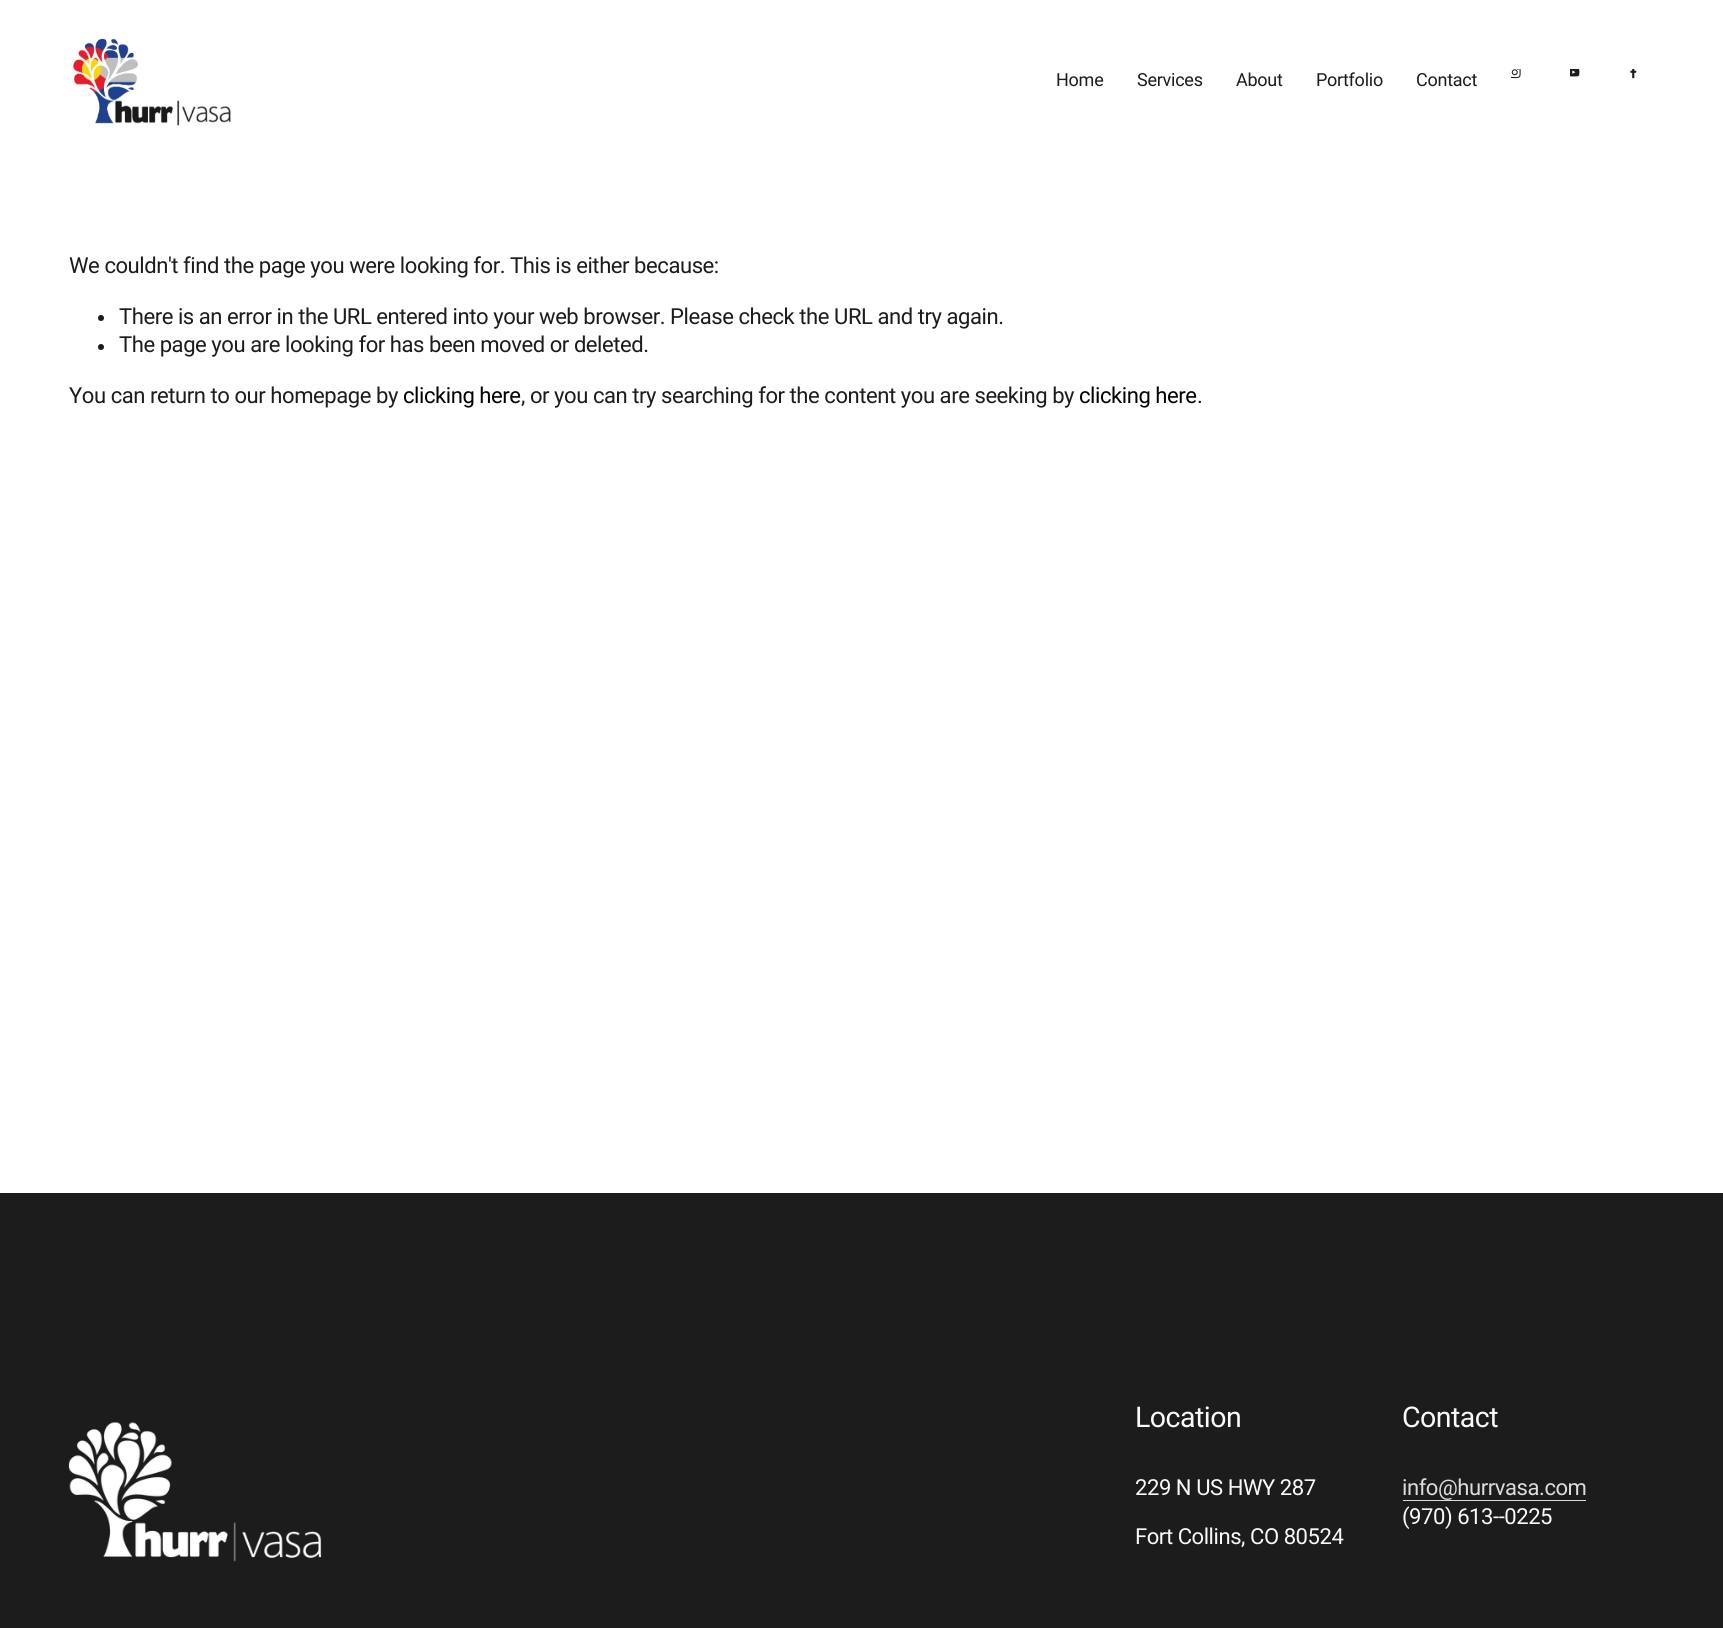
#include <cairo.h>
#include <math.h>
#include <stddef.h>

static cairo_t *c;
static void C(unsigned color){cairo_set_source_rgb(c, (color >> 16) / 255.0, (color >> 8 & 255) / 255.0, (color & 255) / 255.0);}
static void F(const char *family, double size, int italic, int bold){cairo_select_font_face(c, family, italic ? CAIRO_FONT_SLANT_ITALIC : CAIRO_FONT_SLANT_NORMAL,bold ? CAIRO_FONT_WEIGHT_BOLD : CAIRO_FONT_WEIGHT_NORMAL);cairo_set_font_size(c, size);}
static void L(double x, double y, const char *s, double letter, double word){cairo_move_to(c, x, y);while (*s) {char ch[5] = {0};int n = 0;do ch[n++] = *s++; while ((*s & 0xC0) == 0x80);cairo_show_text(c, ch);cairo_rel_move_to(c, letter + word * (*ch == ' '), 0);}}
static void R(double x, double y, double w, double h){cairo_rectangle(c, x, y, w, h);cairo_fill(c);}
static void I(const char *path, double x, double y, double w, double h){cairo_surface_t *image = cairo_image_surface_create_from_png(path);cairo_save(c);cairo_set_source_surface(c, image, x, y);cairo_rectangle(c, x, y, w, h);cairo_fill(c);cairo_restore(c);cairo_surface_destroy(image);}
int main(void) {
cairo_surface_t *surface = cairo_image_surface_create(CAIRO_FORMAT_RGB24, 1723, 1628);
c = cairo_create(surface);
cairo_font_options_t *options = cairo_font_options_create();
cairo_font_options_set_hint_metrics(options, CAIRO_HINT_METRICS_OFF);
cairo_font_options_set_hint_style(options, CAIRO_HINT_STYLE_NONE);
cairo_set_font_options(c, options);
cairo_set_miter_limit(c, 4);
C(0xffffff);
cairo_paint(c);
I("1.png",73,38,158,88);
F("Roboto",18,0,0);
C(0x1c1c1c);
L(1056,86,"Home",-.25,0);
L(1137,86,"Services",-.25,0);
L(1236,86,"About",-.25,0);
L(1316,86,"Portfolio",-.25,0);
L(1416,86,"Contact",-.25,0);
I("2.png",1511,69,10,10);
I("3.png",1570,69,10,8);
I("4.png",1630,69,7,10);
F("Roboto",22.05,0,0);
L(69,273,"We couldn't find the page you were looking for. This is either because:",-.45,0);
cairo_new_path(c);
cairo_arc(c,101,318,3,0,2 * M_PI);
cairo_fill(c);
L(119,324,"There is an error in the URL entered into your web browser. Please check the URL and try again.",-.45,0);
cairo_new_path(c);
cairo_arc(c,101,347,3,0,2 * M_PI);
cairo_fill(c);
L(119,352,"The page you are looking for has been moved or deleted.",-.45,0);
L(69,403,"You can return to our homepage by",-.45,0);
C(0x000000);
L(403,403,"clicking here",-.45,0);
C(0x1c1c1c);
L(521,403,", or you can try searching for the content you are seeking by",-.45,0);
C(0x000000);
L(1079,403,"clicking here",-.45,0);
C(0x1c1c1c);
L(1197,403,".",-.45,0);
R(0,1193,1723,435);
I("5.png",68,1422,254,140);
F("Roboto",28.5,0,0);
C(0xfafafa);
L(1135,1427,"Location",-.5,0);
F("Roboto",22.05,0,0);
L(1135,1495,"229 N US HWY 287",-.45,0);
L(1135,1544,"Fort Collins, CO 80524",-.45,0);
F("Roboto",28.5,0,0);
L(1402,1427,"Contact",-.5,0);
F("Roboto",22.05,0,0);
C(0xdcdcdc);
L(1402,1495,"info@hurrvasa.com",-.45,0);
R(1403,1500,183,1);
C(0xfafafa);
L(1402,1524,"(970) 613--0225",-.45,0);
cairo_surface_write_to_png(surface, "o.png");
cairo_font_options_destroy(options);
cairo_destroy(c);
cairo_surface_destroy(surface);
return 0;
}
